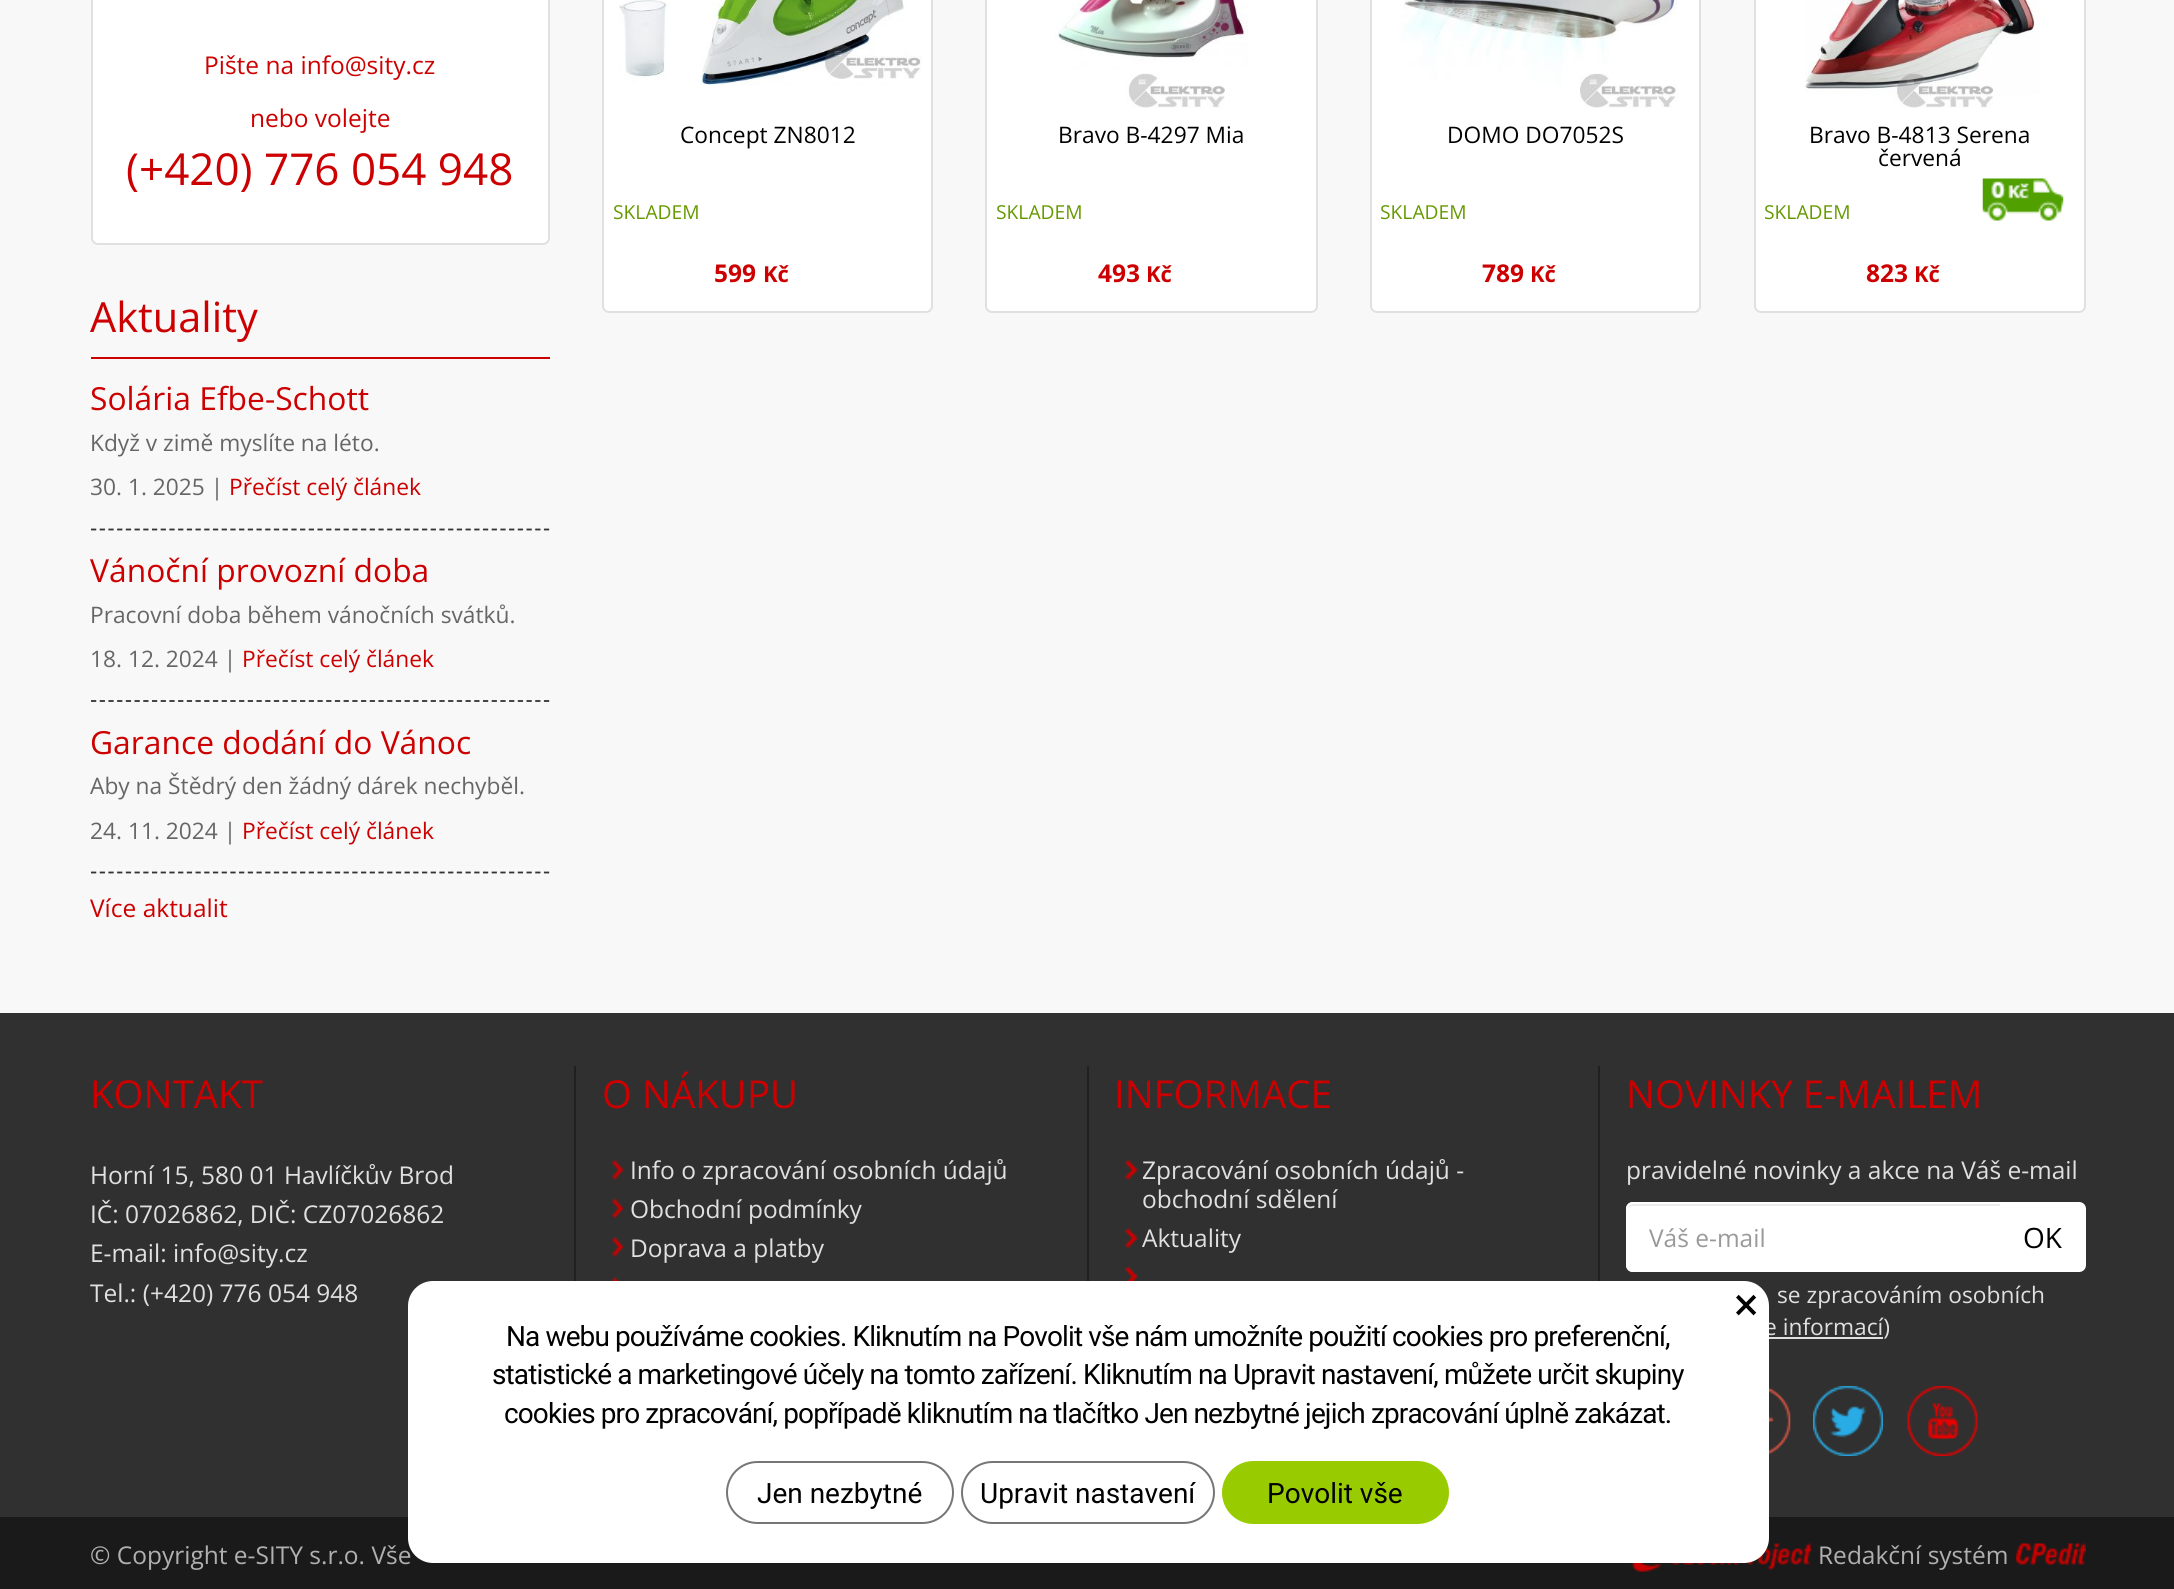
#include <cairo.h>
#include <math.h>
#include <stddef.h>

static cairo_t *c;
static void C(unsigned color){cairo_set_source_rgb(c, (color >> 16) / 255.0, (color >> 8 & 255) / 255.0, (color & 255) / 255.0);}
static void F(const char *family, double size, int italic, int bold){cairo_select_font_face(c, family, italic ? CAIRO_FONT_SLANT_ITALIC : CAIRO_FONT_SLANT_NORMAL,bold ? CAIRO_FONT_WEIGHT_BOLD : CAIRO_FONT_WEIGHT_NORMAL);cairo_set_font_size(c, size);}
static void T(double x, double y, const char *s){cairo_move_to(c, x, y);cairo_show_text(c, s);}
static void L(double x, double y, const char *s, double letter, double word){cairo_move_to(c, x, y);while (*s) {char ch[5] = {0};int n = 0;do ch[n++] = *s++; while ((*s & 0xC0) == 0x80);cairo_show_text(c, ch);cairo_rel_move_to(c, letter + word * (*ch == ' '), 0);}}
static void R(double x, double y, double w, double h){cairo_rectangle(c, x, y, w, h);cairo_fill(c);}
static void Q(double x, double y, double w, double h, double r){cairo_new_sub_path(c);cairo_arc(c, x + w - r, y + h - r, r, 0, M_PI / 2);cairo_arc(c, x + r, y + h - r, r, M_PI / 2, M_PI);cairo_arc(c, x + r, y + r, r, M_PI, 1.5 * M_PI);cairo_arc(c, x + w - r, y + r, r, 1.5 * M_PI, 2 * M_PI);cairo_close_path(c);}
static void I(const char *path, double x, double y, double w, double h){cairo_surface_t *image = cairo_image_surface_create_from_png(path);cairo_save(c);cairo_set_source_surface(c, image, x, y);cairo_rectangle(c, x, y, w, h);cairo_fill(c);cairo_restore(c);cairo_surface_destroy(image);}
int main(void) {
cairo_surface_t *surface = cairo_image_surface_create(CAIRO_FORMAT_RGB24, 2174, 1589);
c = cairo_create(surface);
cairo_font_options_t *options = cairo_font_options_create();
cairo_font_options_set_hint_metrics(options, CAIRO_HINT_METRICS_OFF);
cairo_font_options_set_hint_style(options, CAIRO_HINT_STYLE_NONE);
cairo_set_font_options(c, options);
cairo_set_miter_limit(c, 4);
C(0xf8f8f8);
cairo_paint(c);
C(0xffffff);
Q(92,-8,457,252,6);
cairo_fill_preserve(c);
C(0xe0e0e0);
cairo_stroke(c);
F("Open Sans",24.5,0,0);
C(0xcc0000);
T(204,74,"Pište na info@sity.cz");
T(250,127,"nebo volejte");
F("Open Sans",44,0,0);
T(126,185,"(+420) 776 054 948");
R(91,357,459,2);
F("Open Sans",41.5,0,0);
T(90,332,"Aktuality");
cairo_new_path(c);
cairo_move_to(c,91,529.5);
cairo_line_to(c,549.5,529.5);
C(0x333333);
cairo_set_line_width(c,1.8);
cairo_set_dash(c,(double[]){5.25,3.46},2,0);
cairo_stroke(c);
F("Open Sans",31.8,0,0);
C(0xcc0000);
T(90,410,"Solária Efbe-Schott");
F("Open Sans",22.75,0,0);
C(0x666666);
T(90,451,"Když v zimě myslíte na léto.");
T(90,495,"30. 1. 2025 |");
C(0xcc0000);
T(229,495,"Přečíst celý článek");
cairo_new_path(c);
cairo_move_to(c,91,701);
cairo_line_to(c,549.5,701);
C(0x333333);
cairo_stroke(c);
F("Open Sans",31.8,0,0);
C(0xcc0000);
T(90,582,"Vánoční provozní doba");
F("Open Sans",22.75,0,0);
C(0x666666);
T(90,623,"Pracovní doba během vánočních svátků.");
T(90,667,"18. 12. 2024 |");
C(0xcc0000);
T(242,667,"Přečíst celý článek");
cairo_new_path(c);
cairo_move_to(c,91,872.5);
cairo_line_to(c,549.5,872.5);
C(0x333333);
cairo_stroke(c);
F("Open Sans",31.8,0,0);
C(0xcc0000);
T(90,754,"Garance dodání do Vánoc");
F("Open Sans",22.75,0,0);
C(0x666666);
T(90,794,"Aby na Štědrý den žádný dárek nechyběl.");
T(90,839,"24. 11. 2024 |");
C(0xcc0000);
T(242,839,"Přečíst celý článek");
F("Open Sans",24.5,0,0);
T(90,917,"Více aktualit");
C(0xffffff);
Q(603,-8,329,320,6);
cairo_fill_preserve(c);
C(0xe0e0e0);
cairo_set_line_width(c,2);
cairo_set_dash(c,NULL,0,0);
cairo_stroke(c);
I("1.png",619,0,303,85);
F("Open Sans",22.75,0,0);
C(0x000000);
T(680,143,"Concept ZN8012");
F("Open Sans",19.25,0,0);
C(0x669900);
T(613,219,"SKLADEM");
F("Open Sans",24.5,0,1);
C(0xcc0000);
T(714,282,"599");
F("Open Sans",22,0,1);
T(763,282,"Kč");
C(0xffffff);
Q(986,-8,331,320,6);
cairo_fill_preserve(c);
C(0xe0e0e0);
cairo_stroke(c);
I("2.png",1055,0,193,108);
F("Open Sans",22.75,0,0);
C(0x000000);
T(1058,143,"Bravo B-4297 Mia");
F("Open Sans",19.25,0,0);
C(0x669900);
T(996,219,"SKLADEM");
F("Open Sans",24.5,0,1);
C(0xcc0000);
T(1098,282,"493");
F("Open Sans",22,0,1);
T(1146,282,"Kč");
C(0xffffff);
Q(1371,-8,329,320,6);
cairo_fill_preserve(c);
C(0xe0e0e0);
cairo_stroke(c);
I("3.png",1400,0,278,108);
F("Open Sans",22.75,0,0);
C(0x000000);
T(1447,143,"DOMO DO7052S");
F("Open Sans",19.25,0,0);
C(0x669900);
T(1380,219,"SKLADEM");
F("Open Sans",24.5,0,1);
C(0xcc0000);
T(1482,282,"789");
F("Open Sans",22,0,1);
T(1530,282,"Kč");
C(0xffffff);
Q(1755,-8,330,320,6);
cairo_fill_preserve(c);
C(0xe0e0e0);
cairo_stroke(c);
I("4.png",1805,0,235,108);
F("Open Sans",22.75,0,0);
C(0x000000);
T(1809,143,"Bravo B-4813 Serena");
T(1878,166,"červená");
F("Open Sans",19.25,0,0);
C(0x669900);
T(1764,219,"SKLADEM");
I("5.png",1982,178,82,43);
F("Open Sans",24.5,0,1);
C(0xcc0000);
T(1866,282,"823");
F("Open Sans",22,0,1);
T(1914,282,"Kč");
C(0x303030);
R(0,1013,2174,504);
C(0x202020);
R(574,1066,2,215);
F("Open Sans",38.5,0,0);
C(0xcc0000);
T(90,1108,"KONTAKT");
F("Open Sans",24.5,0,0);
C(0xe0e0e0);
T(90,1184,"Horní 15, 580 01 Havlíčkův Brod");
T(90,1223,"IČ: 07026862, DIČ: CZ07026862");
T(90,1262,"E-mail: info@sity.cz");
T(90,1302,"Tel.: (+420) 776 054 948");
C(0x202020);
R(1087,1066,2,215);
F("Open Sans",38.5,0,0);
C(0xcc0000);
T(602,1108,"O NÁKUPU");
I("6.png",612,1160,11,20);
F("Open Sans",24.5,0,0);
C(0xe0e0e0);
T(630,1179,"Info o zpracování osobních údajů");
I("7.png",612,1198,11,20);
T(630,1218,"Obchodní podmínky");
I("6.png",612,1237,11,20);
T(630,1257,"Doprava a platby");
I("8.png",612,1277,8,4);
C(0x202020);
R(1598,1066,2,215);
F("Open Sans",38.5,0,0);
C(0xcc0000);
T(1114,1108,"INFORMACE");
I("9.png",1125,1160,13,20);
F("Open Sans",24.5,0,0);
C(0xe0e0e0);
T(1142,1179,"Zpracování osobních údajů -");
T(1142,1208,"obchodní sdělení");
I("10.png",1125,1228,13,20);
T(1142,1247,"Aktuality");
I("11.png",1125,1267,13,14);
F("Open Sans",38.5,0,0);
C(0xcc0000);
T(1626,1108,"NOVINKY E-MAILEM");
F("Open Sans",24.5,0,0);
C(0xe0e0e0);
T(1626,1179,"pravidelné novinky a akce na Váš e-mail");
C(0xffffff);
cairo_new_path(c);
cairo_move_to(c,2000,1202);
cairo_line_to(c,2079,1202);
cairo_curve_to(c,2083,1202,2086,1205,2086,1209);
cairo_line_to(c,2086,1265);
cairo_curve_to(c,2086,1269,2083,1272,2079,1272);
cairo_line_to(c,2000,1272);
cairo_close_path(c);
cairo_fill(c);
cairo_new_path(c);
cairo_move_to(c,1633,1202);
cairo_line_to(c,2002,1202);
cairo_line_to(c,2002,1272);
cairo_line_to(c,1633,1272);
cairo_curve_to(c,1629,1272,1626,1269,1626,1265);
cairo_line_to(c,1626,1209);
cairo_curve_to(c,1626,1205,1629,1202,1633,1202);
cairo_close_path(c);
cairo_fill(c);
C(0xececec);
cairo_new_path(c);
cairo_move_to(c,1633,1206);
cairo_line_to(c,2000,1206);
cairo_line_to(c,2000,1204);
cairo_line_to(c,1633,1204);
cairo_curve_to(c,1630,1204,1628,1206,1628,1209);
cairo_line_to(c,1628,1211);
cairo_curve_to(c,1628,1208,1630,1206,1633,1206);
cairo_close_path(c);
cairo_fill(c);
cairo_new_path(c);
cairo_move_to(c,1633,1203);
cairo_line_to(c,2001,1203);
cairo_line_to(c,2001,1271);
cairo_line_to(c,1633,1271);
cairo_curve_to(c,1629.5,1271,1627,1268.5,1627,1265);
cairo_line_to(c,1627,1209);
cairo_curve_to(c,1627,1205.5,1629.5,1203,1633,1203);
cairo_close_path(c);
C(0xffffff);
cairo_stroke(c);
C(0x999999);
T(1649,1247,"Váš e-mail");
F("Open Sans",28,0,0);
C(0x000000);
T(2023,1248,"OK");
F("Open Sans",22.75,0,0);
C(0xe0e0e0);
T(1777,1303,"se zpracováním osobních");
R(1769,1337,114,2);
T(1764,1335,"e informací)");
I("12.png",1769,1387,22,68);
I("13.png",1813,1386,70,70);
I("14.png",1907,1386,71,70);
C(0x1a1a1a);
R(0,1517,2174,72);
F("Open Sans",24.5,0,0);
C(0xb0b0b0);
T(90,1564,"© Copyright e-SITY s.r.o. Vše");
I("15.png",1627,1543,185,29);
T(1818,1564,"Redakční systém");
I("16.png",2016,1543,70,22);
C(0xffffff);
Q(408,1281,1361,282,25);
cairo_fill(c);
F("Roboto",46,0,0);
C(0x000000);
T(1734,1320,"×");
F("Roboto",28,0,0);
L(506,1346,"Na webu používáme cookies. Kliknutím na Povolit vše nám umožníte použití cookies pro preferenční,",-.88,0);
L(492,1384,"statistické a marketingové účely na tomto zařízení. Kliknutím na Upravit nastavení, můžete určit skupiny",-.88,0);
L(504,1423,"cookies pro zpracování, popřípadě kliknutím na tlačítko Jen nezbytné jejich zpracování úplně zakázat.",-.88,0);
Q(727,1462,226,61,30.5);
C(0x767676);
cairo_stroke(c);
C(0x000000);
T(757,1503,"Jen nezbytné");
Q(962,1462,252,61,30.5);
C(0x767676);
cairo_stroke(c);
C(0x000000);
T(980,1503,"Upravit nastavení");
C(0x99cc00);
Q(1223,1462,225,61,30.5);
cairo_fill_preserve(c);
cairo_stroke(c);
C(0x000000);
T(1267,1503,"Povolit vše");
cairo_surface_write_to_png(surface, "o.png");
cairo_font_options_destroy(options);
cairo_destroy(c);
cairo_surface_destroy(surface);
return 0;
}
